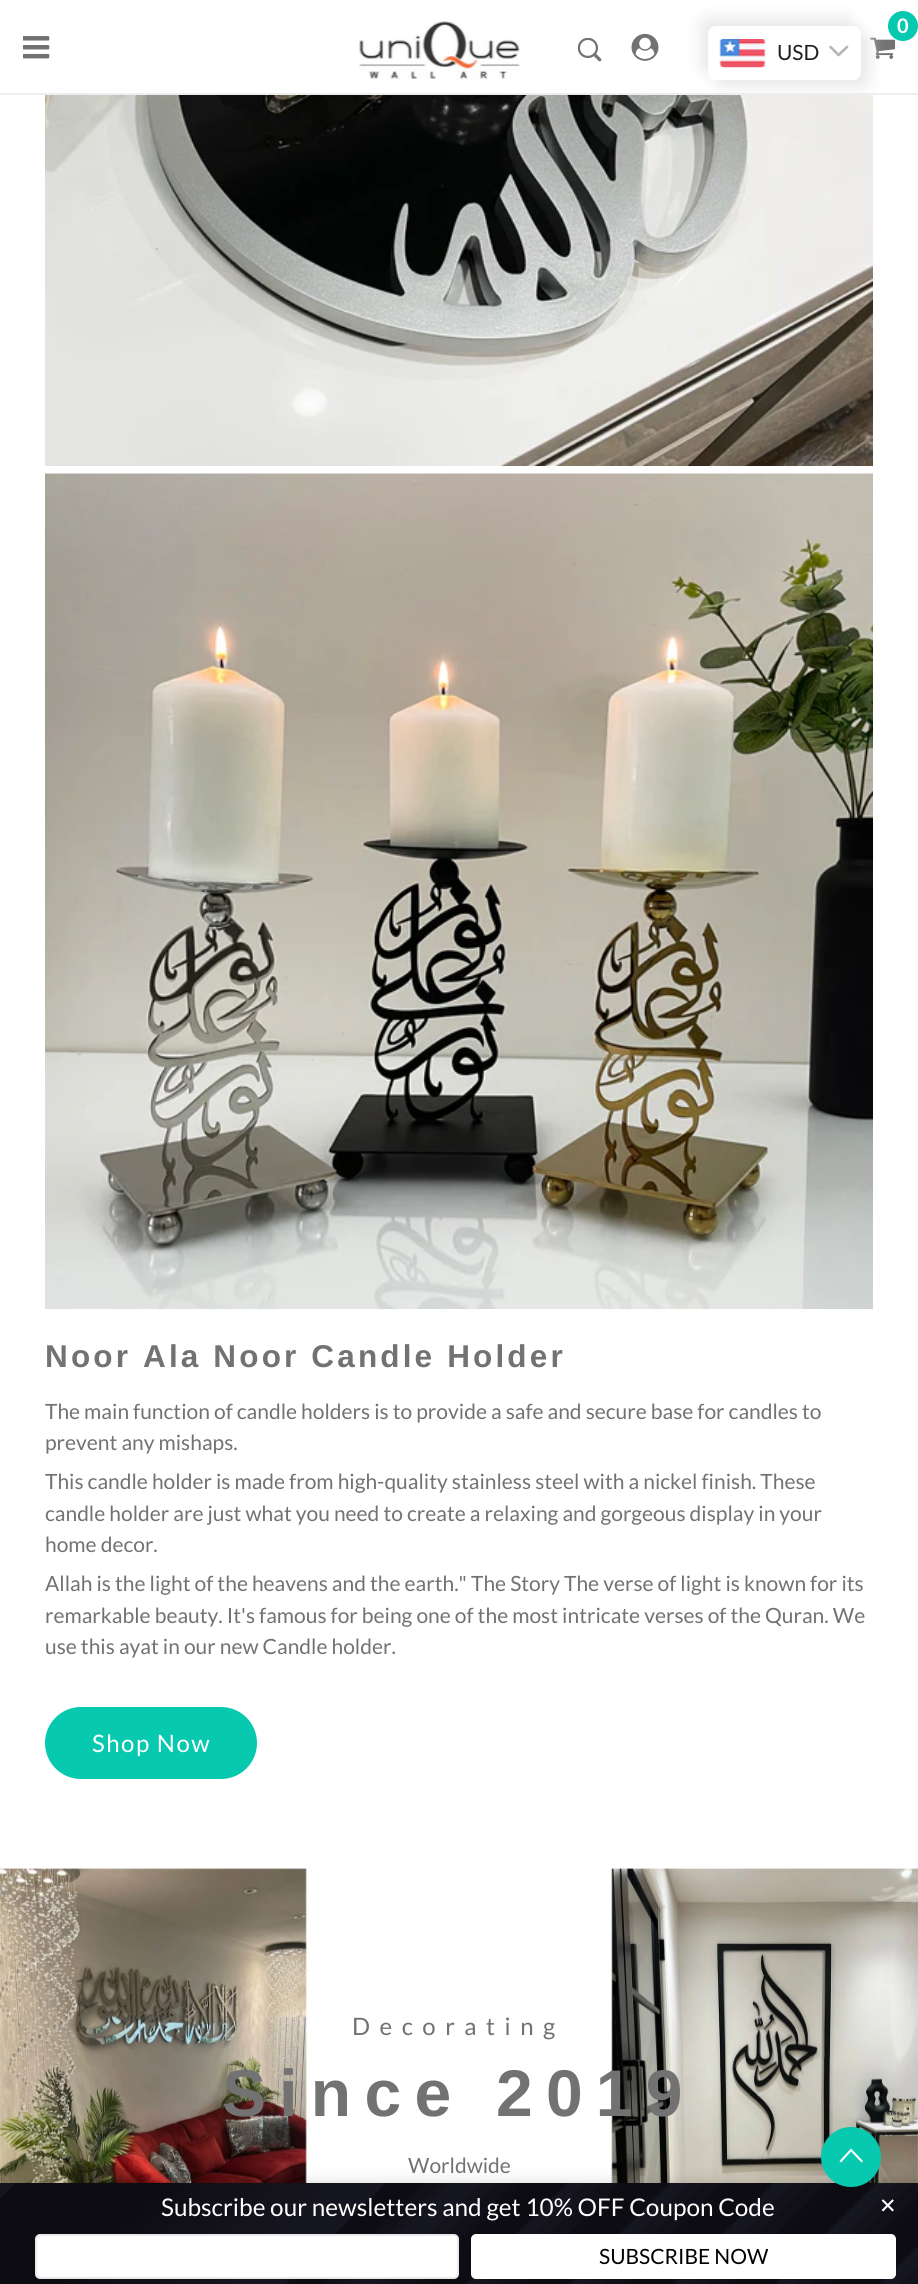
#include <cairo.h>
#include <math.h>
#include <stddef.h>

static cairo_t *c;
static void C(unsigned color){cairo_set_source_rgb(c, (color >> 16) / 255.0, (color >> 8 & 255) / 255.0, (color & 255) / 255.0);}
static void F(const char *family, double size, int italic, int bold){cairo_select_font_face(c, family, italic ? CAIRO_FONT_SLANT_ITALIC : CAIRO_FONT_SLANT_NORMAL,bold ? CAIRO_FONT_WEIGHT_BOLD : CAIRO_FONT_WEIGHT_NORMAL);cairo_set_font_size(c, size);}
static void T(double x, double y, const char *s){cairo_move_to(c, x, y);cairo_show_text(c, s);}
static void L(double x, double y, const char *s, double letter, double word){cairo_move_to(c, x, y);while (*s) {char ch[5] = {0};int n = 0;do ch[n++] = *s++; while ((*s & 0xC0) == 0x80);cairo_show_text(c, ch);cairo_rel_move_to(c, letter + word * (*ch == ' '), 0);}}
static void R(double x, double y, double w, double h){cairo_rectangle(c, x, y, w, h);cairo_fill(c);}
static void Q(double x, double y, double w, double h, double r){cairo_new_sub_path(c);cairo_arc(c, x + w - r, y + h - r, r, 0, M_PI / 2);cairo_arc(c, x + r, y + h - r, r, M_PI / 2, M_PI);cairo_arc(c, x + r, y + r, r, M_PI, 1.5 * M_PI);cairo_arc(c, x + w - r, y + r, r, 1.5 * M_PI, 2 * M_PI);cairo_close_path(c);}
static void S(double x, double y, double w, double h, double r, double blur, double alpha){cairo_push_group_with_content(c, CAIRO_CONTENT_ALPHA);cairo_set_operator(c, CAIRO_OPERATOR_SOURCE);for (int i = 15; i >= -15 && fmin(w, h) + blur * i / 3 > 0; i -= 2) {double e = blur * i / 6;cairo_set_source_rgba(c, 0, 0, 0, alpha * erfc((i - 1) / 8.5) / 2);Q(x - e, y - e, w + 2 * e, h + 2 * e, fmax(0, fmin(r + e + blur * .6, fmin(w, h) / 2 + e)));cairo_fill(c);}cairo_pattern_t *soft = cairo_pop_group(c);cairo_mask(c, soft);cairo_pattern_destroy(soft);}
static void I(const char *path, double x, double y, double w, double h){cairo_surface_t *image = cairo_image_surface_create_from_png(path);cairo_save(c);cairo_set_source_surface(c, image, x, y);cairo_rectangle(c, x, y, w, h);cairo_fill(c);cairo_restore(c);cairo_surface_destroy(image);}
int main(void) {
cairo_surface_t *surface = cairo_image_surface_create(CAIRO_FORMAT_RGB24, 918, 2284);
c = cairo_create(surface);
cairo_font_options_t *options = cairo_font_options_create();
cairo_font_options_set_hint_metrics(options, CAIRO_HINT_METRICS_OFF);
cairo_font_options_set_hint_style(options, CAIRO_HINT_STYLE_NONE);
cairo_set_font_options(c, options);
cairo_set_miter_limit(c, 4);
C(0xffffff);
cairo_paint(c);
C(0xeeeeee);
R(0,93,918,2);
I("1.png",23,36,27,23);
I("2.png",359,21,161,59);
I("3.png",578,38,24,24);
I("4.png",631,33,28,28);
I("5.png",870,37,26,22);
C(0x06c9af);
cairo_arc(c,903,26,15,0,2 * M_PI);
cairo_fill(c);
F("Lato",20,0,1);
C(0xffffff);
T(897,33,"0");
I("7.png",45,95,828,371);
C(0xe8e8e8);
S(701,18,153,54,8,7.5,1);
S(716,33,153,54,8,7.5,1);
C(0xffffff);
Q(708,26,153,54,8);
cairo_fill(c);
I("6.png",719,39,47,29);
F("Lato",21,0,0);
C(0x1e1e1e);
T(777,60,"USD");
cairo_new_path(c);
cairo_move_to(c,830.5,47);
cairo_line_to(c,838.5,55);
cairo_line_to(c,847,47);
C(0xb7b7b7);
cairo_set_line_width(c,2.7);
cairo_set_line_cap(c,CAIRO_LINE_CAP_ROUND);
cairo_set_line_join(c,CAIRO_LINE_JOIN_ROUND);
cairo_stroke(c);
I("8.png",45,473,828,836);
F("Liberation Sans",31.5,0,1);
C(0x727272);
L(45,1367,"Noor Ala Noor Candle Holder",3.15,0);
F("Lato",21,0,0);
T(45,1419,"The main function of candle holders is to provide a safe and secure base for candles to");
T(45,1450,"prevent any mishaps.");
T(45,1489,"This candle holder is made from high-quality stainless steel with a nickel finish. These");
T(45,1521,"candle holder are just what you need to create a relaxing and gorgeous display in your");
T(45,1552,"home decor.");
T(45,1591,"Allah is the light of the heavens and the earth.\" The Story The verse of light is known for its");
T(45,1623,"remarkable beauty. It's famous for being one of the most intricate verses of the Quran. We");
T(45,1654,"use this ayat in our new Candle holder.");
C(0x06c9af);
Q(45,1707,212,72,36);
cairo_fill(c);
F("Lato",24,0,0);
C(0xffffff);
L(92,1752,"Shop Now",1.5,0);
I("9.png",0,1868,918,315);
C(0x727272);
L(352,2035,"Decorating",9.5,0);
F("Liberation Sans",66,0,1);
L(222,2116,"Since 2019",13.25,0);
F("Lato",21,0,0);
T(408,2173,"Worldwide");
C(0x000000);
S(-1,2181,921,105,0,7,.11);
I("10.png",0,2183,918,101);
C(0x06c9af);
cairo_arc(c,851,2157,30,0,2 * M_PI);
cairo_fill(c);
C(0xffffff);
cairo_new_path(c);
cairo_move_to(c,861.5,2162.5);
cairo_line_to(c,863,2161);
cairo_line_to(c,851,2148.5);
cairo_line_to(c,839.5,2161);
cairo_line_to(c,841,2162.5);
cairo_line_to(c,851,2151.5);
cairo_close_path(c);
cairo_fill(c);
F("Lato",24.35,0,0);
T(161,2216,"Subscribe our newsletters and get 10% OFF Coupon Code");
F("DejaVu Sans",21,0,0);
T(879,2213,"✕");
Q(36,2235,422,43,4);
cairo_fill_preserve(c);
C(0xeaeaea);
cairo_set_line_width(c,2);
cairo_set_line_cap(c,CAIRO_LINE_CAP_BUTT);
cairo_set_line_join(c,CAIRO_LINE_JOIN_MITER);
cairo_stroke(c);
C(0xffffff);
Q(472,2235,423,43,4);
cairo_fill_preserve(c);
cairo_stroke(c);
F("Lato",21,0,0);
C(0x000000);
T(599,2264,"SUBSCRIBE NOW");
cairo_surface_write_to_png(surface, "o.png");
cairo_font_options_destroy(options);
cairo_destroy(c);
cairo_surface_destroy(surface);
return 0;
}
